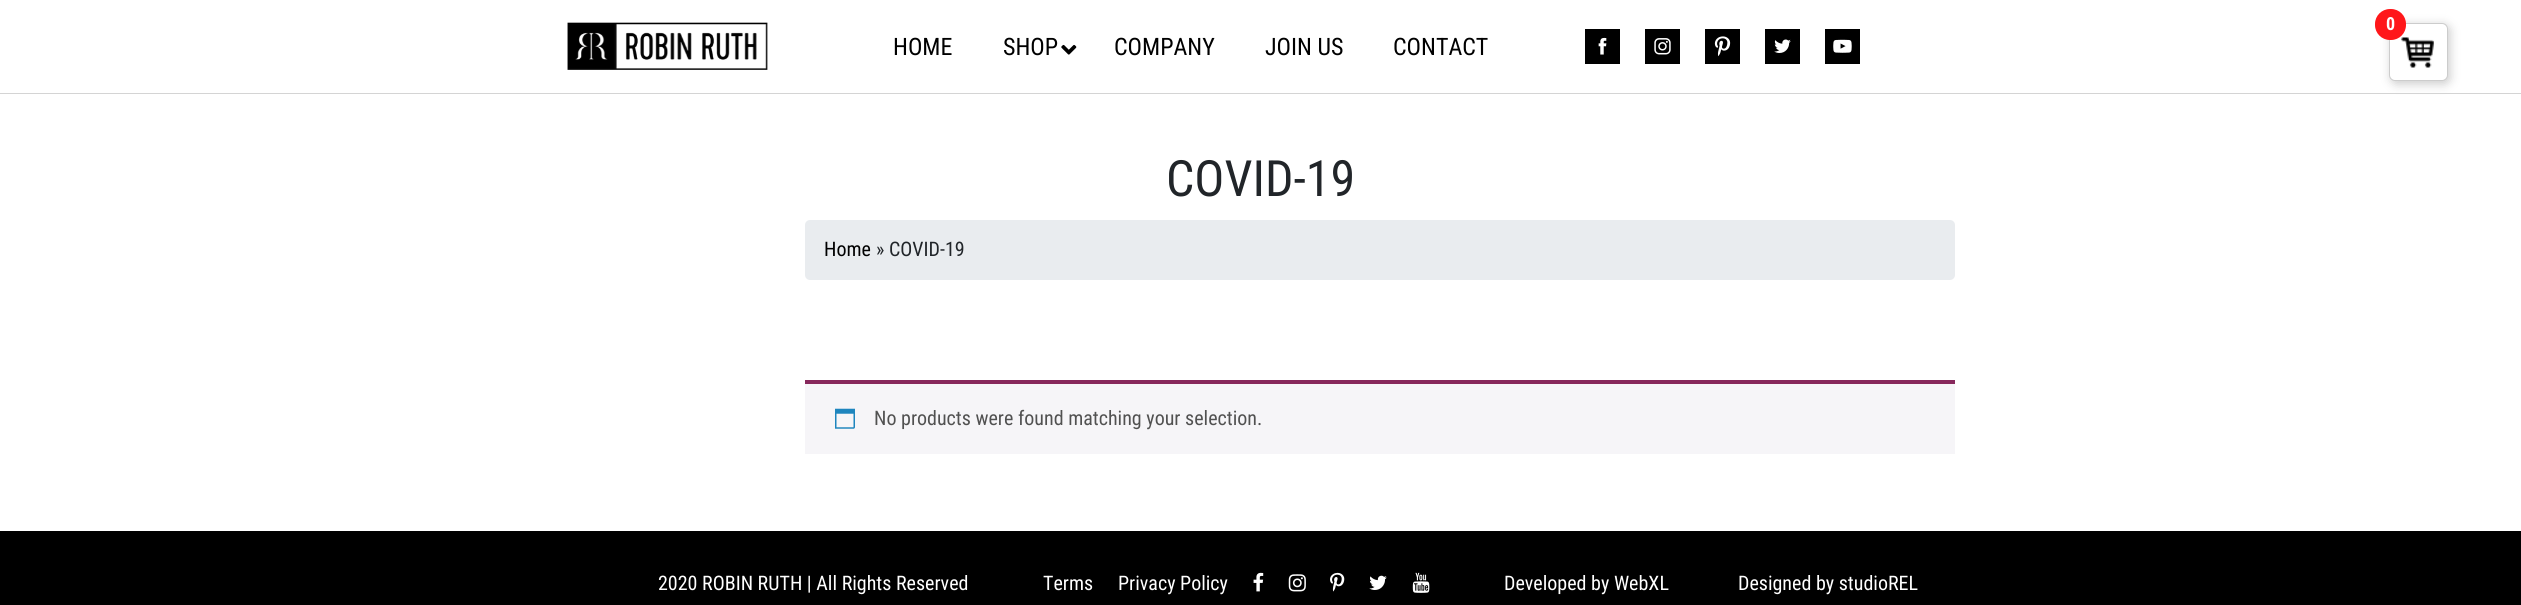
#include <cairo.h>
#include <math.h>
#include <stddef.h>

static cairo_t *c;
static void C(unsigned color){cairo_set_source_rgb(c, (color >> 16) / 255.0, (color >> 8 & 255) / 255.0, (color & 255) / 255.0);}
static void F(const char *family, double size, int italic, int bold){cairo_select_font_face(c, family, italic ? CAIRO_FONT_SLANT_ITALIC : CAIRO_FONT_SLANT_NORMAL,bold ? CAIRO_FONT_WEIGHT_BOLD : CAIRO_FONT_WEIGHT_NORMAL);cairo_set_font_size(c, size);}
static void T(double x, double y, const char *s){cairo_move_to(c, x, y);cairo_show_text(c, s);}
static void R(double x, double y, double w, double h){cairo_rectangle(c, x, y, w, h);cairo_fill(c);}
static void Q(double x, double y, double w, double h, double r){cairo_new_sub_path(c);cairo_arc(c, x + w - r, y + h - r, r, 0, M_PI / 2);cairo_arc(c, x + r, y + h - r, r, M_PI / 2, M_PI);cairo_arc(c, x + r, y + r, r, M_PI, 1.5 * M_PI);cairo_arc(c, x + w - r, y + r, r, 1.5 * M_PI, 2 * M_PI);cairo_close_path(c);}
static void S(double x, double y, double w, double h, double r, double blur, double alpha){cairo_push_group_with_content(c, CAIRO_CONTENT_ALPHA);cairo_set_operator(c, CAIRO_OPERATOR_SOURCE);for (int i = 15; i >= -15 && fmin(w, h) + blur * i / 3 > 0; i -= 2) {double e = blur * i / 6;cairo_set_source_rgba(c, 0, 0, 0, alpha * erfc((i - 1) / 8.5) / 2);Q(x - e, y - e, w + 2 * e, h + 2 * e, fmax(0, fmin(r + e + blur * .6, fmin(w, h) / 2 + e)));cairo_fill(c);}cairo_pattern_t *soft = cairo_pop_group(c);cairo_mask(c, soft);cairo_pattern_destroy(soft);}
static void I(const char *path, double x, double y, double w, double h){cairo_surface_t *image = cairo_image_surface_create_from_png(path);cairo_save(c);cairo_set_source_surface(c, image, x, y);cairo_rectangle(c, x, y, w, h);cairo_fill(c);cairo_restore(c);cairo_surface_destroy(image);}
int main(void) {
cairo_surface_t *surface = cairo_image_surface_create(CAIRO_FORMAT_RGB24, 2521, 605);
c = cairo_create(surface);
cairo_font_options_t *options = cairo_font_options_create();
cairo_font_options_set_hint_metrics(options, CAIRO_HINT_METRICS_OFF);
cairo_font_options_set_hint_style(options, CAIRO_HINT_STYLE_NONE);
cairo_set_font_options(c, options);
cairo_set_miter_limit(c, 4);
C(0xffffff);
cairo_paint(c);
C(0xd4d4d4);
R(0,93,2521,1);
C(0xcccccc);
S(2391,25,59,59,6,5,1);
C(0xffffff);
Q(2389.5,23.5,58,57,5.5);
cairo_fill_preserve(c);
C(0xcccccc);
cairo_set_line_width(c,1);
cairo_stroke(c);
I("1.png",2401,37,33,31);
C(0xff171a);
Q(2375,9,31,31,15);
cairo_fill(c);
F("Roboto Condensed",18,0,1);
C(0xffffff);
T(2386,30,"0");
I("2.png",567,22,201,48);
F("Roboto Condensed",24,0,0);
C(0x000000);
T(893,55,"HOME");
T(1003,55,"SHOP");
I("3.png",1061,44,16,11);
T(1114,55,"COMPANY");
T(1265,55,"JOIN US");
T(1393,55,"CONTACT");
I("4.png",1585,29,35,35);
I("5.png",1645,29,35,35);
I("6.png",1705,29,35,35);
I("7.png",1765,29,35,35);
I("8.png",1825,29,35,35);
F("Roboto Condensed",50,0,0);
C(0x212529);
T(1166,196,"COVID-19");
C(0xe9ecef);
Q(805,220,1150,60,5);
cairo_fill(c);
F("Roboto Condensed",20,0,0);
C(0x000000);
T(824,256,"Home");
C(0x212529);
T(876,256,"» COVID-19");
C(0xf6f5f8);
R(805,384,1150,70);
C(0x87285c);
R(805,380,1150,4);
I("9.png",835,408,20,21);
C(0x515151);
T(874,425,"No products were found matching your selection.");
C(0x000000);
R(0,531,2521,74);
C(0xffffff);
T(658,590,"2020 ROBIN RUTH | All Rights Reserved");
T(1043,590,"Terms");
T(1118,590,"Privacy Policy");
I("10.png",1253,572,11,20);
I("11.png",1288,574,18,18);
I("12.png",1330,572,15,20);
I("13.png",1369,575,18,15);
I("14.png",1412,572,18,21);
T(1504,590,"Developed by WebXL");
T(1738,590,"Designed by studioREL");
cairo_surface_write_to_png(surface, "o.png");
cairo_font_options_destroy(options);
cairo_destroy(c);
cairo_surface_destroy(surface);
return 0;
}
